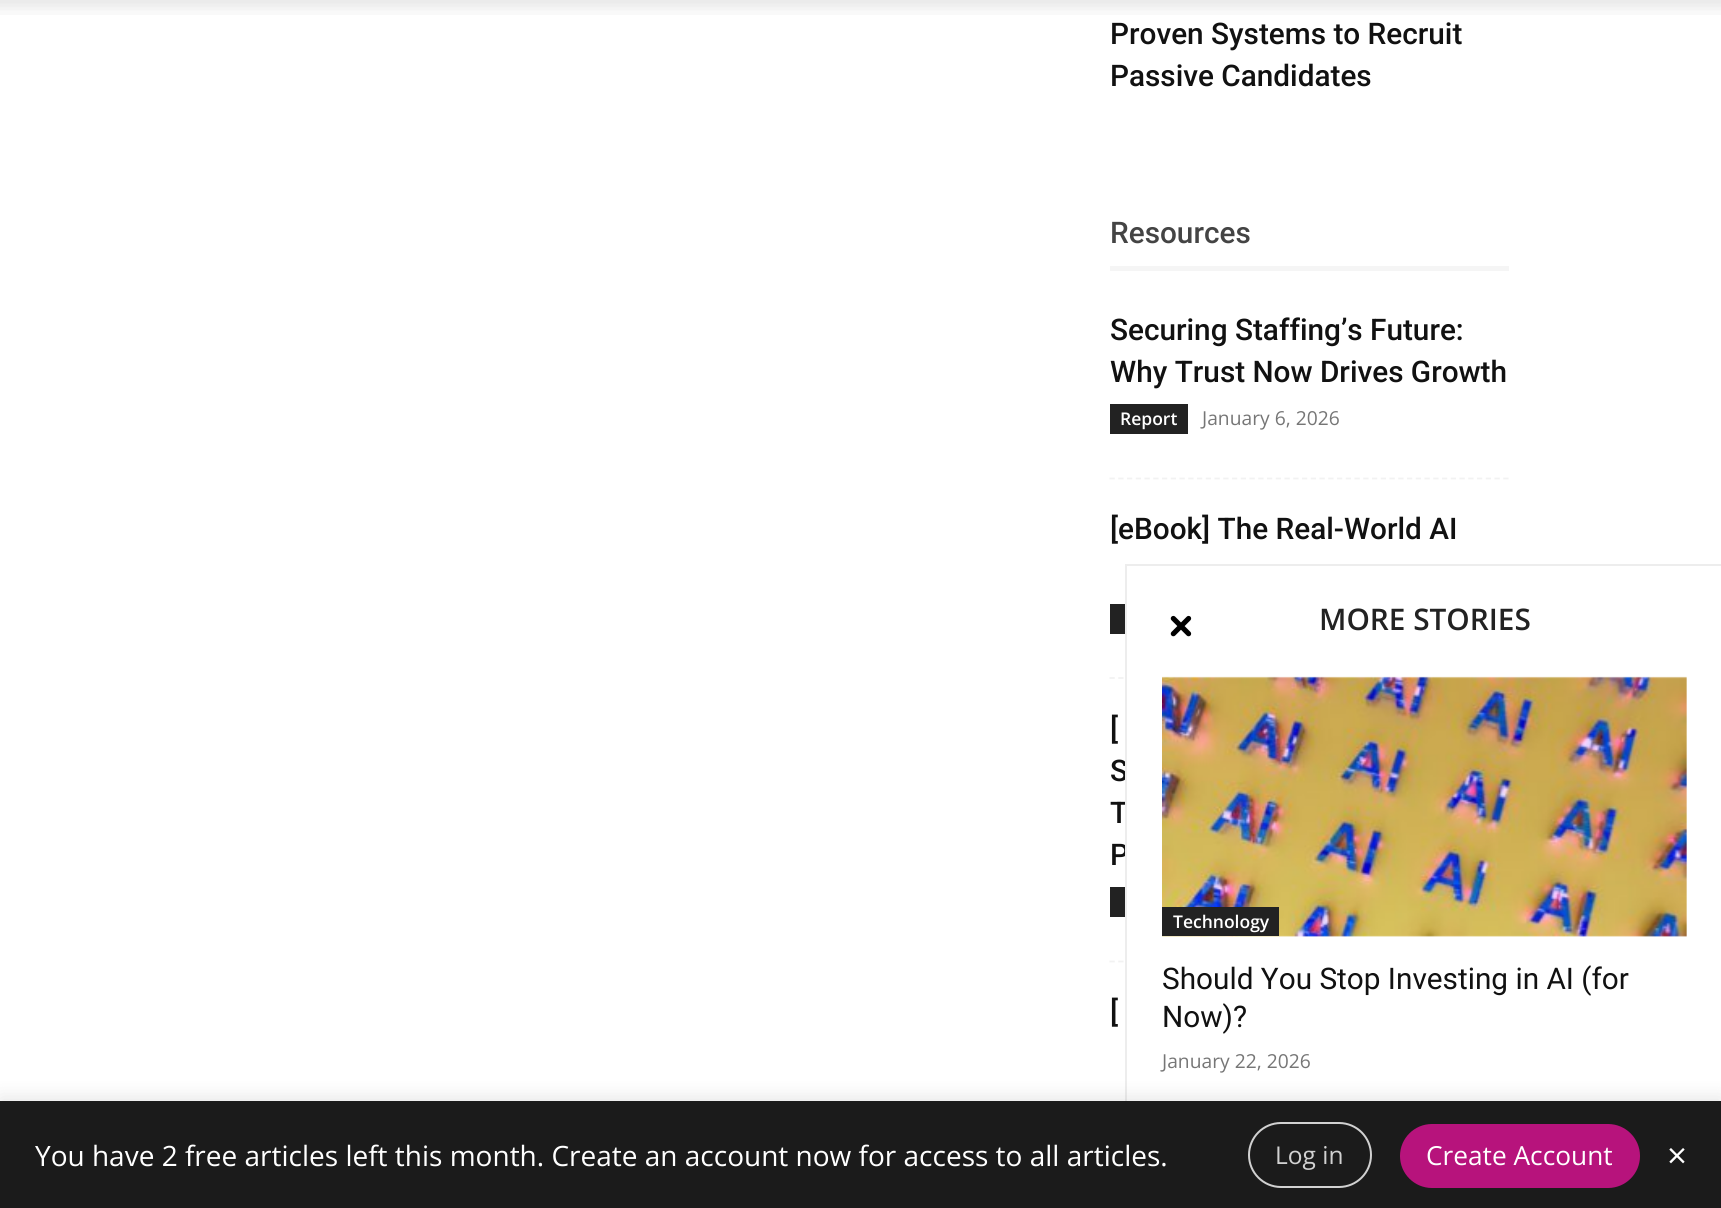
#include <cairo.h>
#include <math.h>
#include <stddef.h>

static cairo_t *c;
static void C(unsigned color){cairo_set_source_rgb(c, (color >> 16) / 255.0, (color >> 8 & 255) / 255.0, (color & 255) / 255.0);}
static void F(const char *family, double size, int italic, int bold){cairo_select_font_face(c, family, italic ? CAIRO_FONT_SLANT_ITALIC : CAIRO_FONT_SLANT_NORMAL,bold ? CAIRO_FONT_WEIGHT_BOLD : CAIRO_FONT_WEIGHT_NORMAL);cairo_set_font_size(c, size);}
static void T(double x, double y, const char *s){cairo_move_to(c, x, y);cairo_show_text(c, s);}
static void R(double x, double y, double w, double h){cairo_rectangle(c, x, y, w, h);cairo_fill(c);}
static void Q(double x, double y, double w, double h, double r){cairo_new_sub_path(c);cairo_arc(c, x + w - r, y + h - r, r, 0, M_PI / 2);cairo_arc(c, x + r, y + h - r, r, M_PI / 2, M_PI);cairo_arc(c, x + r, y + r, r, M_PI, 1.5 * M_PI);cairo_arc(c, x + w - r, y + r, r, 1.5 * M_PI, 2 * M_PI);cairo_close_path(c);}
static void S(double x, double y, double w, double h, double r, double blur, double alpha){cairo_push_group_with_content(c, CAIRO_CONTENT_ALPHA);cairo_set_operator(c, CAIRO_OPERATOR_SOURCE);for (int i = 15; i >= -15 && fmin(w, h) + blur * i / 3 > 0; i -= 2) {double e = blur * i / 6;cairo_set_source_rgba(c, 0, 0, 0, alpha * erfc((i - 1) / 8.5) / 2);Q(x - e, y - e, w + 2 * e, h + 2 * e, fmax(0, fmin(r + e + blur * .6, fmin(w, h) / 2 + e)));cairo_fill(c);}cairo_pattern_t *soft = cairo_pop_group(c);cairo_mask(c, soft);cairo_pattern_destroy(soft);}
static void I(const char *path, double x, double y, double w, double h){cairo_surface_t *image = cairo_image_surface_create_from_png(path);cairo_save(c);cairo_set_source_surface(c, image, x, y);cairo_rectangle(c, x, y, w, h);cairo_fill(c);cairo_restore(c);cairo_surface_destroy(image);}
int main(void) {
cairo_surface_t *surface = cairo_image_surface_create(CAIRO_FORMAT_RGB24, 1721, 1208);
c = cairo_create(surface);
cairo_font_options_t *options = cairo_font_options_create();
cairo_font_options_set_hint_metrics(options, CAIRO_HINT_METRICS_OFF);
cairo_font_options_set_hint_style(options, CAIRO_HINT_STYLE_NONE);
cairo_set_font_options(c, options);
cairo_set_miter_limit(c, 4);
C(0xffffff);
cairo_paint(c);
I("1.png",0,0,1721,15);
F("Roboto Medium",29.75,0,0);
C(0x111111);
T(1110,44,"Proven Systems to Recruit");
T(1110,86,"Passive Candidates");
C(0x444444);
T(1110,243,"Resources");
C(0xf5f5f5);
R(1110,266,399,5);
cairo_new_path(c);
cairo_move_to(c,1109.5,478.5);
cairo_line_to(c,1508.5,478.5);
C(0xf2f2f2);
cairo_set_line_width(c,1.8);
cairo_set_dash(c,(double[]){5.25,3.5},2,0);
cairo_stroke(c);
C(0x111111);
T(1110,340,"Securing Staffing’s Future:");
T(1110,382,"Why Trust Now Drives Growth");
C(0x222222);
R(1110,404,78,30);
F("Open Sans SemiBold",17.5,0,0);
C(0xffffff);
T(1120,425,"Report");
F("Open Sans",19.25,0,0);
C(0x767676);
T(1202,425,"January 6, 2026");
cairo_new_path(c);
cairo_move_to(c,1109.5,678);
cairo_line_to(c,1508.5,678);
C(0xf2f2f2);
cairo_stroke(c);
F("Roboto Medium",29.75,0,0);
C(0x111111);
T(1110,539,"[eBook] The Real-World AI");
C(0x222222);
R(1110,604,15,30);
cairo_new_path(c);
cairo_move_to(c,1109.5,961.5);
cairo_line_to(c,1508.5,961.5);
C(0xf2f2f2);
cairo_stroke(c);
C(0x111111);
T(1110,739,"[");
T(1110,781,"S");
T(1110,823,"T");
T(1110,865,"P");
C(0x222222);
R(1110,887,15,30);
C(0x111111);
T(1110,1022,"[");
C(0xffffff);
R(1127,677,382,286);
C(0xededed);
R(1125,564,596,2);
R(1125,564,2,537);
I("2.png",1170,615,22,22);
F("Open Sans SemiBold",29.75,0,0);
C(0x222222);
T(1319,630,"MORE STORIES");
I("3.png",1162,676,525,261);
R(1162,907,117,29);
F("Open Sans SemiBold",17.5,0,0);
C(0xffffff);
T(1173,928,"Technology");
F("Roboto",29.75,0,0);
C(0x111111);
T(1162,989,"Should You Stop Investing in AI (for");
T(1162,1027,"Now)?");
F("Open Sans",19.25,0,0);
C(0x767676);
T(1162,1068,"January 22, 2026");
C(0x000000);
S(0,1097,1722,109,0,9,.1);
C(0x1b1b1b);
R(0,1101,1721,107);
F("Open Sans",28,0,0);
C(0xffffff);
T(35,1166,"You have 2 free articles left this month. Create an account now for access to all articles.");
Q(1249,1123,122,64,32);
C(0xd1d1d1);
cairo_set_line_width(c,2);
cairo_set_dash(c,NULL,0,0);
cairo_stroke(c);
F("Open Sans",24.5,0,0);
T(1275,1164,"Log in");
C(0xb7137c);
Q(1400,1124,240,64,32);
cairo_fill(c);
F("Open Sans",26.25,0,0);
C(0xffffff);
T(1426,1165,"Create Account");
F("Open Sans",35,0,0);
T(1667,1168,"×");
cairo_surface_write_to_png(surface, "o.png");
cairo_font_options_destroy(options);
cairo_destroy(c);
cairo_surface_destroy(surface);
return 0;
}
